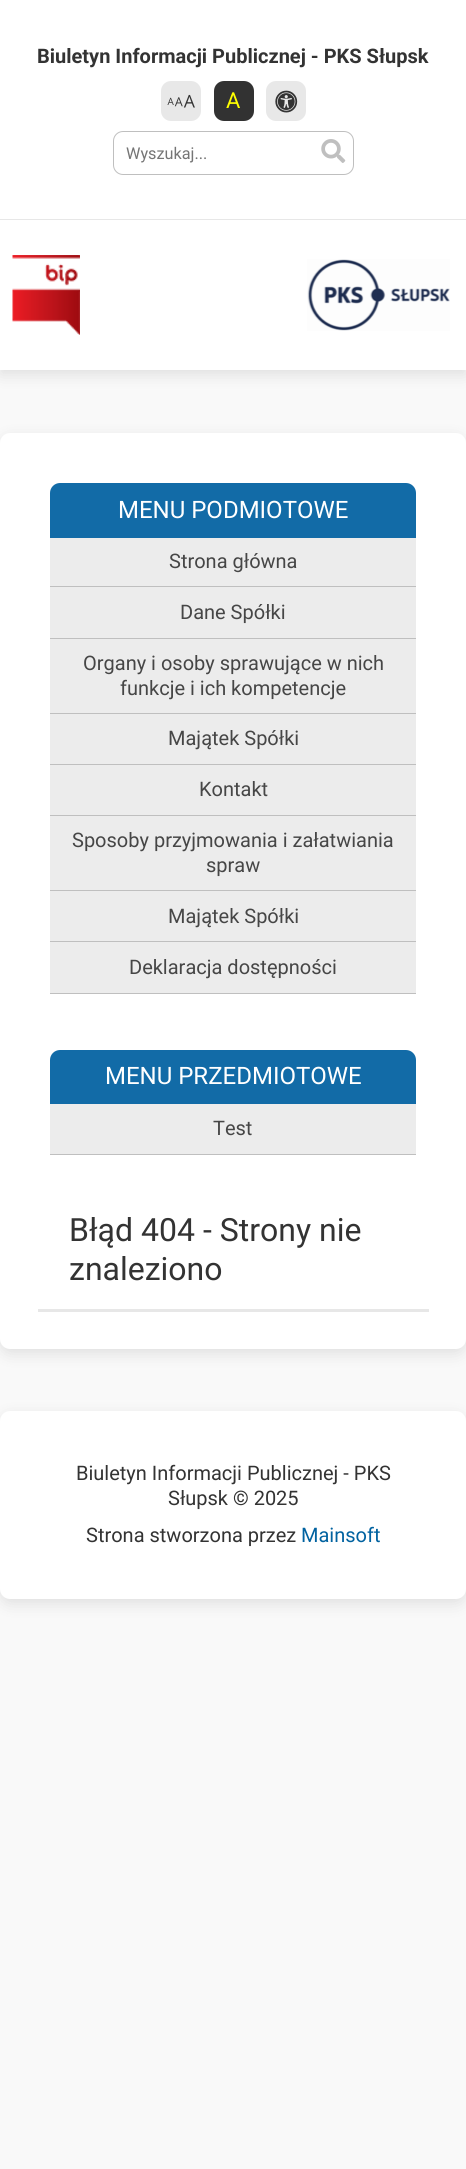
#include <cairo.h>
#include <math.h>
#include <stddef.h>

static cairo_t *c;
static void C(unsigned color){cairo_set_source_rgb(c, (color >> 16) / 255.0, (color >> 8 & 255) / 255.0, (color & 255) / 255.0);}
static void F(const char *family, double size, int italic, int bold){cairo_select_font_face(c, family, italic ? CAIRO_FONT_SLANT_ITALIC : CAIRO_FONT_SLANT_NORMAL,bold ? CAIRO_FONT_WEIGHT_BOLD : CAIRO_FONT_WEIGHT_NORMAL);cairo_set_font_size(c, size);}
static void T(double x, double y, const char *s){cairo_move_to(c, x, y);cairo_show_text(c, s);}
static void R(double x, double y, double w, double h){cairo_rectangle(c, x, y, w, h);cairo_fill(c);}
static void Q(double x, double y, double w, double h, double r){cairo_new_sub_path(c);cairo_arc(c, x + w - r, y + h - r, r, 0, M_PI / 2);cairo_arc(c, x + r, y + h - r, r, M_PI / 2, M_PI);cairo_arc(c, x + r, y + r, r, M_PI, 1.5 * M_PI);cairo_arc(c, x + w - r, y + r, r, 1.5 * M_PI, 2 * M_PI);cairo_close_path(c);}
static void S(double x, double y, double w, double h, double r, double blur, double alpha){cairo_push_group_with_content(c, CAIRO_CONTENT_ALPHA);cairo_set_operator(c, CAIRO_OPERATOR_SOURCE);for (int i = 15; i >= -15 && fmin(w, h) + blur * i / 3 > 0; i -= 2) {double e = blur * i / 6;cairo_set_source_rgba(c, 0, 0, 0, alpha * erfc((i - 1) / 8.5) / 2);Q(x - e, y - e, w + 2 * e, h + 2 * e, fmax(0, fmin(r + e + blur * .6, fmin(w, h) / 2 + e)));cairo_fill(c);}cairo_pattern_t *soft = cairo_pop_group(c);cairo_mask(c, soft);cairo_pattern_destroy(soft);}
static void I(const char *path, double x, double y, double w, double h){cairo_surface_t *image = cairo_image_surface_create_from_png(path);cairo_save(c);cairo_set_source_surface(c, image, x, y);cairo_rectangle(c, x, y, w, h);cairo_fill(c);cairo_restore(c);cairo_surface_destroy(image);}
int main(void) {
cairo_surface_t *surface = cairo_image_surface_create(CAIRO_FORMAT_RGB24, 466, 2169);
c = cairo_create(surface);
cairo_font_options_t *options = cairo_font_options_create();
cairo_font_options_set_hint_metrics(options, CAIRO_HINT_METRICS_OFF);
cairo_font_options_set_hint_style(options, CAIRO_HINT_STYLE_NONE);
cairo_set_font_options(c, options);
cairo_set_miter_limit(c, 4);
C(0xf9f9f9);
cairo_paint(c);
C(0x000000);
S(0,5,466,370,0,7.5,.1);
C(0xffffff);
R(0,0,466,370);
F("Roboto",20,0,1);
C(0x333333);
T(37,63,"Biuletyn Informacji Publicznej - PKS Słupsk");
C(0xe8e8e8);
Q(161,81,40,40,10);
cairo_fill(c);
I("1.png",167,94,28,14);
C(0x323232);
Q(214,81,40,40,10);
cairo_fill(c);
F("Roboto",22,0,0);
C(0xffff00);
T(226,108,"A");
C(0xe8e8e8);
Q(266,81,40,40,10);
cairo_fill(c);
I("2.png",275,90,23,23);
Q(113.5,131.5,240,43,9.5);
C(0xbfbfbf);
cairo_set_line_width(c,1);
cairo_stroke(c);
F("Roboto",16.25,0,0);
C(0x757575);
T(126,159,"Wyszukaj...");
I("3.png",321,139,25,24);
C(0xe7e7e7);
R(0,219,466,1);
I("4.png",12,255,68,80);
I("5.png",307,259,143,72);
C(0x000000);
S(0,438,466,916,10,7.5,.1);
C(0xffffff);
Q(0,433,466,916,10);
cairo_fill(c);
C(0x126ba7);
cairo_new_path(c);
cairo_move_to(c,60,483);
cairo_line_to(c,406,483);
cairo_curve_to(c,411.5,483,416,487.5,416,493);
cairo_line_to(c,416,538);
cairo_line_to(c,50,538);
cairo_line_to(c,50,493);
cairo_curve_to(c,50,487.5,54.5,483,60,483);
cairo_close_path(c);
cairo_fill(c);
F("Roboto",24,0,0);
C(0xffffff);
T(118,518,"MENU PODMIOTOWE");
C(0xececec);
R(50,538,366,100);
C(0xbfbfbf);
R(50,586,366,1);
F("Roboto",20,0,0);
C(0x464646);
T(169,568,"Strona główna");
C(0xbfbfbf);
R(50,638,366,1);
C(0x464646);
T(180,619,"Dane Spółki");
C(0xececec);
R(50,639,366,74);
C(0xbfbfbf);
R(50,713,366,1);
C(0x464646);
T(83,670,"Organy i osoby sprawujące w nich");
T(120,695,"funkcje i ich kompetencje");
C(0xececec);
R(50,714,366,50);
C(0xbfbfbf);
R(50,764,366,1);
C(0x464646);
T(168,745,"Majątek Spółki");
C(0xececec);
R(50,765,366,50);
C(0xbfbfbf);
R(50,815,366,1);
C(0x464646);
T(199,796,"Kontakt");
C(0xececec);
R(50,816,366,74);
C(0xbfbfbf);
R(50,890,366,1);
C(0x464646);
T(72,847,"Sposoby przyjmowania i załatwiania");
T(206,872,"spraw");
C(0xececec);
R(50,891,366,102);
C(0xbfbfbf);
R(50,941,366,1);
C(0x464646);
T(168,923,"Majątek Spółki");
C(0xbfbfbf);
R(50,993,366,1);
C(0x464646);
T(129,974,"Deklaracja dostępności");
C(0x126ba7);
cairo_new_path(c);
cairo_move_to(c,60,1050);
cairo_line_to(c,406,1050);
cairo_curve_to(c,411.5,1050,416,1054.5,416,1060);
cairo_line_to(c,416,1104);
cairo_line_to(c,50,1104);
cairo_line_to(c,50,1060);
cairo_curve_to(c,50,1054.5,54.5,1050,60,1050);
cairo_close_path(c);
cairo_fill(c);
F("Roboto",24,0,0);
C(0xffffff);
T(105,1084,"MENU PRZEDMIOTOWE");
C(0xececec);
R(50,1104,366,50);
C(0xbfbfbf);
R(50,1154,366,1);
F("Roboto",20,0,0);
C(0x464646);
T(213,1135,"Test");
C(0xe7e7e7);
R(38,1309,391,3);
F("Roboto",32,0,0);
C(0x333333);
T(69,1241,"Błąd 404 - Strony nie");
T(69,1280,"znaleziono");
C(0x000000);
S(0,1416,466,188,10,7.5,.1);
C(0xffffff);
Q(0,1411,466,188,10);
cairo_fill(c);
F("Roboto",20,0,0);
C(0x333333);
T(76,1480,"Biuletyn Informacji Publicznej - PKS");
T(168,1505,"Słupsk © 2025");
T(86,1542,"Strona stworzona przez");
C(0x0162a0);
T(301,1542,"Mainsoft");
cairo_surface_write_to_png(surface, "o.png");
cairo_font_options_destroy(options);
cairo_destroy(c);
cairo_surface_destroy(surface);
return 0;
}
